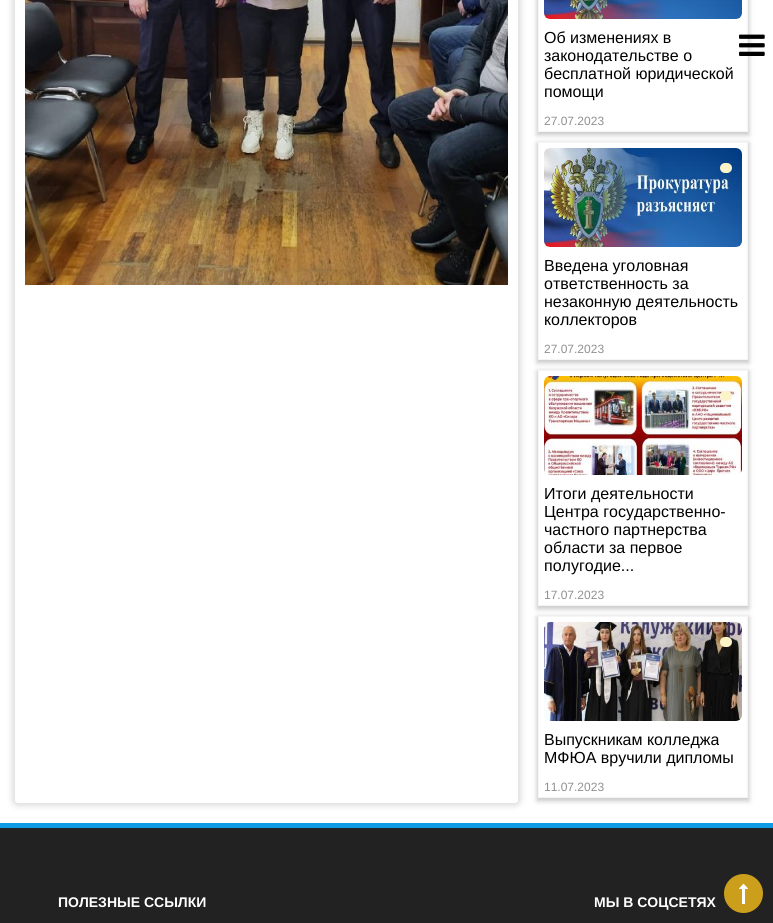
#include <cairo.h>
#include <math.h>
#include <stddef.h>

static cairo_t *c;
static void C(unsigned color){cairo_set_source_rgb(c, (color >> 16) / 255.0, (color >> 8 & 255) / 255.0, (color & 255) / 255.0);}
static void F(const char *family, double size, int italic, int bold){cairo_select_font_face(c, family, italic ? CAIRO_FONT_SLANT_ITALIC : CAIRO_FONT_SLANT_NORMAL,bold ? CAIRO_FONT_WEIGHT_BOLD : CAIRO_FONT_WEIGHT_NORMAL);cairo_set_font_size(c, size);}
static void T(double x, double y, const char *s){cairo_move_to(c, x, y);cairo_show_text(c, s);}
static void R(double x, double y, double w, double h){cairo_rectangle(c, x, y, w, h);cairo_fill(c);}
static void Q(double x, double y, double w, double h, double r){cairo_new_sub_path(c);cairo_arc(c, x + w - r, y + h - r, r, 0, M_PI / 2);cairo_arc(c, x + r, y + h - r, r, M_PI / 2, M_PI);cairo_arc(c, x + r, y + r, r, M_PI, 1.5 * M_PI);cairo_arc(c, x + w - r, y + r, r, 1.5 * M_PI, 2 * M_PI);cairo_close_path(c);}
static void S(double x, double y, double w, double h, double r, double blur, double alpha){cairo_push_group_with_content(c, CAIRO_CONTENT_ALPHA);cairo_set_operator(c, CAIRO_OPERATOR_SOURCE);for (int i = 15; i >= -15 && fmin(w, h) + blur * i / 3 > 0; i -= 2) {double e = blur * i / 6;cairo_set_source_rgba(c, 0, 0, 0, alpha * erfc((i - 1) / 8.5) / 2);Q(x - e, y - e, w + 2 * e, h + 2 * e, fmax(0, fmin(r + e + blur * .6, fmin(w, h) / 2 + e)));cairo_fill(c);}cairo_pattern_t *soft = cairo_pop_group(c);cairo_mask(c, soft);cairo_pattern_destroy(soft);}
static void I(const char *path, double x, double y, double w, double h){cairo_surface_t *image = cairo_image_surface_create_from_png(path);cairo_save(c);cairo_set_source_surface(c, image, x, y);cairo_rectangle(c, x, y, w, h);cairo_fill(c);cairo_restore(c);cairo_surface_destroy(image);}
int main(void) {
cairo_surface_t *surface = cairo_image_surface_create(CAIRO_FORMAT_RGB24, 773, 923);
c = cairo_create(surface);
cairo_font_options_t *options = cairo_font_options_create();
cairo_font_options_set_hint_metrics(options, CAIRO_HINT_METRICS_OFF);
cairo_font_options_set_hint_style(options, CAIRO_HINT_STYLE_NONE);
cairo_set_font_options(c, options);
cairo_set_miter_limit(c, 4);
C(0xffffff);
cairo_paint(c);
cairo_save(c);
cairo_set_fill_rule(c,CAIRO_FILL_RULE_EVEN_ODD);
cairo_new_path(c);
cairo_move_to(c,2,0);
cairo_line_to(c,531,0);
cairo_line_to(c,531,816);
cairo_line_to(c,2,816);
cairo_close_path(c);
cairo_move_to(c,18,-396);
cairo_line_to(c,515,-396);
cairo_curve_to(c,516.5,-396,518,-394.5,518,-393);
cairo_line_to(c,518,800);
cairo_curve_to(c,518,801.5,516.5,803,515,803);
cairo_line_to(c,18,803);
cairo_curve_to(c,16.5,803,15,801.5,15,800);
cairo_line_to(c,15,-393);
cairo_curve_to(c,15,-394.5,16.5,-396,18,-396);
cairo_close_path(c);
cairo_clip(c);
C(0xdedede);
S(12,-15,509,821,6,3,1);
cairo_restore(c);
I("1.png",25,0,483,285);
cairo_save(c);
cairo_set_fill_rule(c,CAIRO_FILL_RULE_EVEN_ODD);
cairo_new_path(c);
cairo_move_to(c,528,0);
cairo_line_to(c,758,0);
cairo_line_to(c,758,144);
cairo_line_to(c,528,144);
cairo_close_path(c);
cairo_move_to(c,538,-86);
cairo_line_to(c,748,-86);
cairo_line_to(c,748,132);
cairo_line_to(c,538,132);
cairo_close_path(c);
cairo_clip(c);
C(0xc7c7c7);
S(537,-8,212,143,0,2.5,1);
cairo_restore(c);
cairo_rectangle(c,538.5,-.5,209,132);
C(0xf5f5f5);
cairo_set_line_width(c,1);
cairo_stroke(c);
I("2.png",544,0,198,19);
F("Liberation Sans",16,0,0);
C(0x000000);
T(544,43,"Об изменениях в");
T(544,61,"законодательстве о");
T(544,79,"бесплатной юридической");
T(544,97,"помощи");
F("Liberation Sans",12,0,0);
C(0x909090);
T(544,125,"27.07.2023");
cairo_save(c);
cairo_set_fill_rule(c,CAIRO_FILL_RULE_EVEN_ODD);
cairo_new_path(c);
cairo_move_to(c,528,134);
cairo_line_to(c,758,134);
cairo_line_to(c,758,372);
cairo_line_to(c,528,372);
cairo_close_path(c);
cairo_move_to(c,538,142);
cairo_line_to(c,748,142);
cairo_line_to(c,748,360);
cairo_line_to(c,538,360);
cairo_close_path(c);
cairo_clip(c);
C(0xc7c7c7);
S(537,143,212,220,0,2.5,1);
cairo_restore(c);
cairo_rectangle(c,538.5,142.5,209,217);
C(0xf5f5f5);
cairo_stroke(c);
I("3.png",544,148,198,99);
C(0xfcf4c9);
Q(720,163,12,10,5);
cairo_fill(c);
F("Liberation Sans",16,0,0);
C(0x000000);
T(544,271,"Введена уголовная");
T(544,289,"ответственность за");
T(544,307,"незаконную деятельность");
T(544,325,"коллекторов");
F("Liberation Sans",12,0,0);
C(0x909090);
T(544,353,"27.07.2023");
cairo_save(c);
cairo_set_fill_rule(c,CAIRO_FILL_RULE_EVEN_ODD);
cairo_new_path(c);
cairo_move_to(c,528,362);
cairo_line_to(c,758,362);
cairo_line_to(c,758,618);
cairo_line_to(c,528,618);
cairo_close_path(c);
cairo_move_to(c,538,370);
cairo_line_to(c,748,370);
cairo_line_to(c,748,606);
cairo_line_to(c,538,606);
cairo_close_path(c);
cairo_clip(c);
C(0xc7c7c7);
S(537,371,212,238,0,2.5,1);
cairo_restore(c);
cairo_rectangle(c,538.5,370.5,209,235);
C(0xf5f5f5);
cairo_stroke(c);
I("4.png",544,376,198,99);
C(0xfcf4c9);
Q(720,391,12,10,5);
cairo_fill(c);
F("Liberation Sans",16,0,0);
C(0x000000);
T(544,499,"Итоги деятельности");
T(544,517,"Центра государственно-");
T(544,535,"частного партнерства");
T(544,553,"области за первое");
T(544,571,"полугодие...");
F("Liberation Sans",12,0,0);
C(0x909090);
T(544,599,"17.07.2023");
cairo_save(c);
cairo_set_fill_rule(c,CAIRO_FILL_RULE_EVEN_ODD);
cairo_new_path(c);
cairo_move_to(c,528,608);
cairo_line_to(c,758,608);
cairo_line_to(c,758,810);
cairo_line_to(c,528,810);
cairo_close_path(c);
cairo_move_to(c,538,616);
cairo_line_to(c,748,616);
cairo_line_to(c,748,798);
cairo_line_to(c,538,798);
cairo_close_path(c);
cairo_clip(c);
C(0xc7c7c7);
S(537,617,212,184,0,2.5,1);
cairo_restore(c);
cairo_rectangle(c,538.5,616.5,209,181);
C(0xf5f5f5);
cairo_stroke(c);
I("5.png",544,622,198,99);
C(0xfcf4c9);
Q(720,637,12,10,5);
cairo_fill(c);
F("Liberation Sans",16,0,0);
C(0x000000);
T(544,745,"Выпускникам колледжа");
T(544,763,"МФЮА вручили дипломы");
F("Liberation Sans",12,0,0);
C(0x909090);
T(544,791,"11.07.2023");
I("6.png",739,34,26,22);
C(0x222222);
R(0,828,773,95);
C(0x0c9be4);
R(0,823,773,5);
F("Liberation Sans",14,0,1);
C(0xffffff);
T(58,907,"ПОЛЕЗНЫЕ ССЫЛКИ");
T(594,907,"МЫ В СОЦСЕТЯХ");
C(0xcb9e1c);
cairo_new_path(c);
cairo_arc(c,743.5,893.5,19.5,0,2 * M_PI);
cairo_fill(c);
I("7.png",739,883,9,21);
cairo_surface_write_to_png(surface, "o.png");
cairo_font_options_destroy(options);
cairo_destroy(c);
cairo_surface_destroy(surface);
return 0;
}
